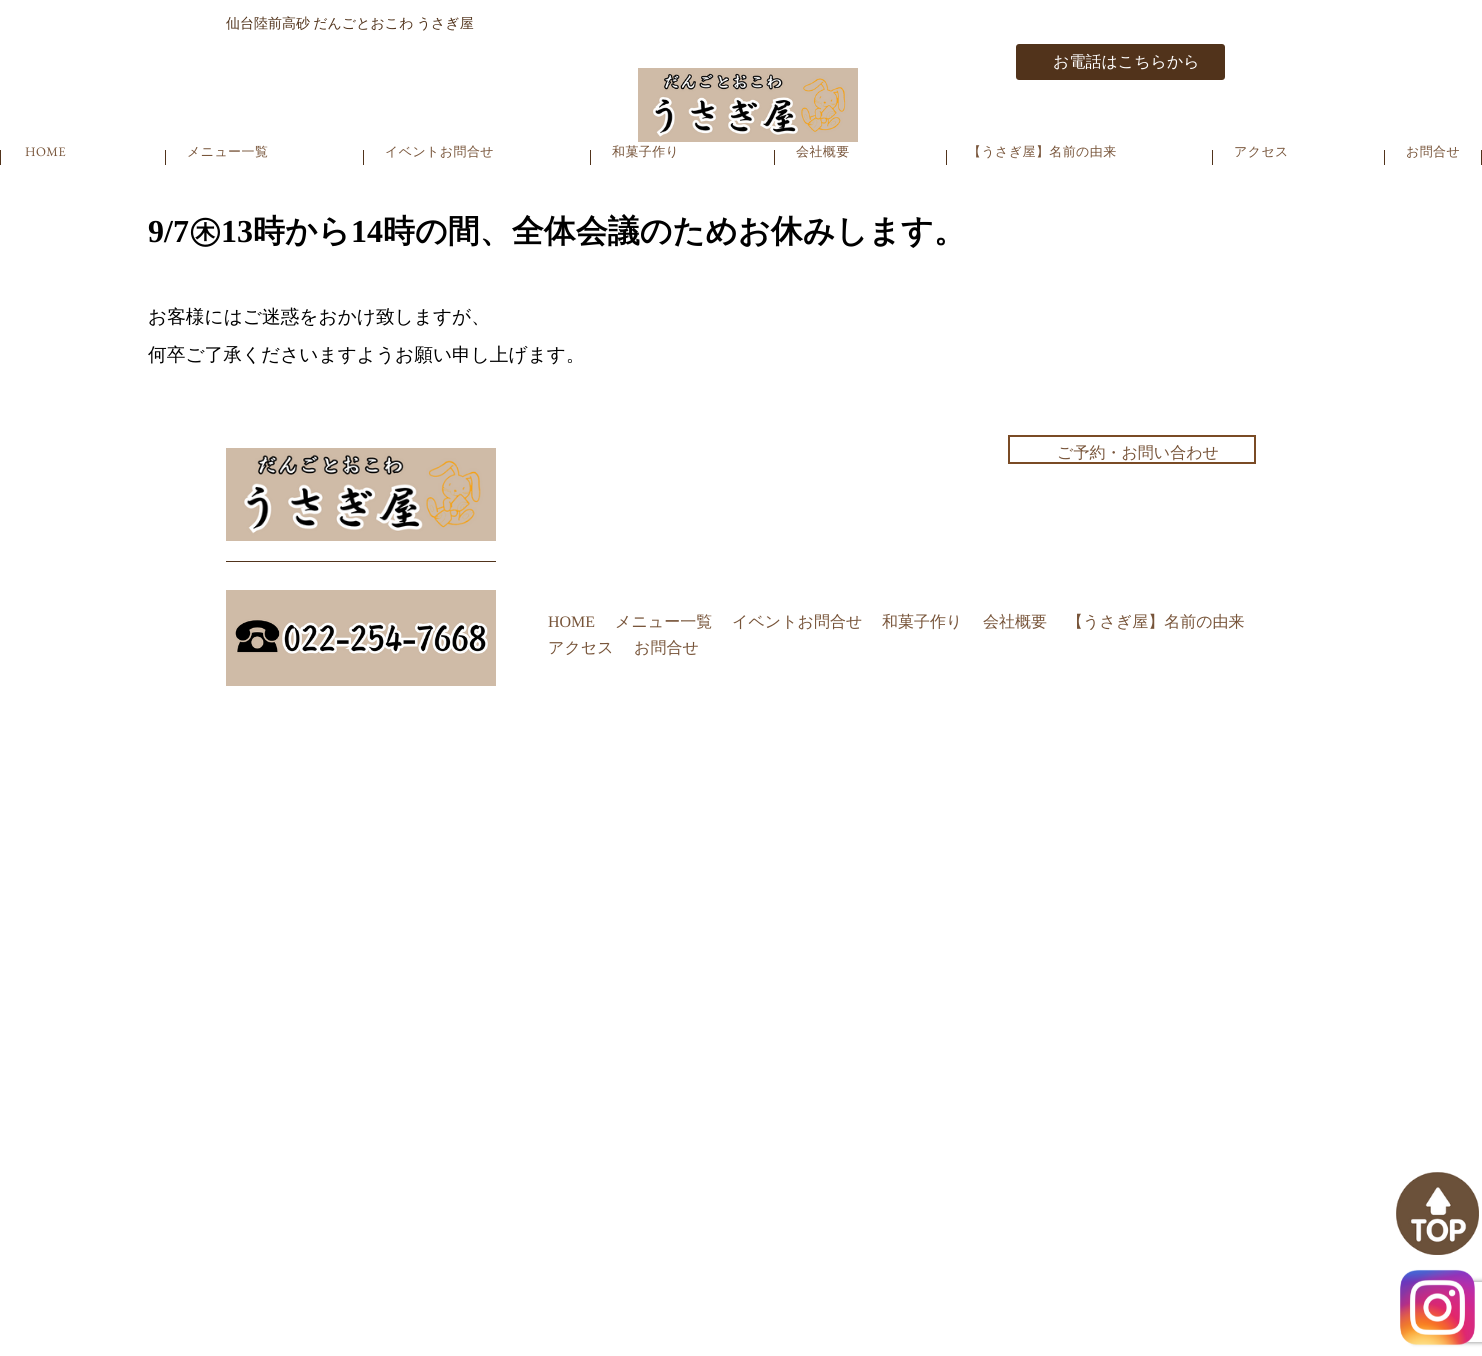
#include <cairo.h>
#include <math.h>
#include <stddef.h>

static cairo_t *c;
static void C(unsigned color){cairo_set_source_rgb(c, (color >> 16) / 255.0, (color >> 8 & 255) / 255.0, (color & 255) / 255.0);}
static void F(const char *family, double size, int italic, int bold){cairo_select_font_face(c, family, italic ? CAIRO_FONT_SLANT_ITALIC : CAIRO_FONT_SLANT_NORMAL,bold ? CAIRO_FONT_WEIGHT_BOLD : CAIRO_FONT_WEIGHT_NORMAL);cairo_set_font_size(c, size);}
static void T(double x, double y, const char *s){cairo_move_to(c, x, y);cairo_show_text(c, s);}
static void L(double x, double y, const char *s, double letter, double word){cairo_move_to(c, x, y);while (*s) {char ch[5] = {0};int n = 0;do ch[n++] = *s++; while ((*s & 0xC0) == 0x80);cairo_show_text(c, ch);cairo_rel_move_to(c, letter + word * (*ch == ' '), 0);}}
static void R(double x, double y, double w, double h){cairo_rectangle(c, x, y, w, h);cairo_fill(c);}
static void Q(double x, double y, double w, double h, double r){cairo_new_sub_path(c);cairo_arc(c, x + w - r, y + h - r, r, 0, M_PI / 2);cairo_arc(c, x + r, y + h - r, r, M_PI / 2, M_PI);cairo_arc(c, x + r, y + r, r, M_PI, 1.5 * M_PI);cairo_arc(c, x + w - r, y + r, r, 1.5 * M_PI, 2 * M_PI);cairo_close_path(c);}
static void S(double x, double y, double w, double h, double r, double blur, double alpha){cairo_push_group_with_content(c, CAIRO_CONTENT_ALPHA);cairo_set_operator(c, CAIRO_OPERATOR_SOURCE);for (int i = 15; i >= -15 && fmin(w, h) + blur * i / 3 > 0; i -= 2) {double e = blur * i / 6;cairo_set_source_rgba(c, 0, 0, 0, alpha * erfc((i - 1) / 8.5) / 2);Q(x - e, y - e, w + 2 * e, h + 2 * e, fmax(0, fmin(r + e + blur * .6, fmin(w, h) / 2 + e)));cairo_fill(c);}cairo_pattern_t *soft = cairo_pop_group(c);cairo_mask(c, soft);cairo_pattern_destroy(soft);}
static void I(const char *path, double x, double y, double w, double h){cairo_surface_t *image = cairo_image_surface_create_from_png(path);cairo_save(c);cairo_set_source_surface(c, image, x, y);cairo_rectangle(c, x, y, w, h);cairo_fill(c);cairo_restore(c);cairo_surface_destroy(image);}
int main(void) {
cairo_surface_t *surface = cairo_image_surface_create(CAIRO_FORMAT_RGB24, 1482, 1356);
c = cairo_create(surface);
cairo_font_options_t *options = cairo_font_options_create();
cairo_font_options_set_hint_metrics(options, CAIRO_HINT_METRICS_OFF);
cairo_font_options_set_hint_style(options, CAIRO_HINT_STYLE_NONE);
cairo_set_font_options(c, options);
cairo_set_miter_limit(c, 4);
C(0xffffff);
cairo_paint(c);
F("WenQuanYi Zen Hei Medium",14,0,0);
C(0x51331b);
L(226,28,"仙台陸前高砂 だんごとおこわ うさぎ屋",0,-1);
Q(1016,44,209,36,3);
cairo_fill(c);
F("WenQuanYi Zen Hei Medium",16,0,0);
C(0xffffff);
T(1053,67,"お電話はこちらから");
I("1.png",638,68,220,74);
C(0x51331b);
R(0,150,1,15);
F("EB Garamond",13,0,0);
C(0x775439);
L(25,156,"HOME",.4,0);
C(0x51331b);
R(165,150,1,15);
F("WenQuanYi Zen Hei Medium",13,0,0);
C(0x775439);
L(187,156,"メニュー一覧",.4,0);
C(0x51331b);
R(363,150,1,15);
C(0x775439);
L(385,156,"イベントお問合せ",.4,0);
C(0x51331b);
R(590,150,1,15);
C(0x775439);
L(612,156,"和菓子作り",.4,0);
C(0x51331b);
R(774,150,1,15);
C(0x775439);
L(796,156,"会社概要",.4,0);
C(0x51331b);
R(946,150,1,15);
C(0x775439);
L(968,156,"【うさぎ屋】名前の由来",.4,0);
C(0x51331b);
R(1212,150,1,15);
C(0x775439);
L(1234,156,"アクセス",.4,0);
C(0x51331b);
R(1384,150,1,15);
C(0x775439);
L(1406,156,"お問合せ",.4,0);
C(0x51331b);
R(1481,150,1,15);
F("Liberation Serif",32,0,1);
C(0x000000);
T(148,242,"9/7");
F("WenQuanYi Zen Hei",32,0,1);
T(189,242,"㊍");
F("Liberation Serif",32,0,1);
T(221,242,"13");
F("WenQuanYi Zen Hei",32,0,1);
T(253,242,"時から");
F("Liberation Serif",32,0,1);
T(351,242,"14");
F("WenQuanYi Zen Hei",32,0,1);
T(383,242,"時の間、全体会議のためお休みします。");
F("WenQuanYi Zen Hei Medium",18.7,0,0);
T(148,323,"お客様にはご迷惑をおかけ致しますが、");
T(148,361,"何卒ご了承くださいますようお願い申し上げます。");
C(0x51331b);
R(226,561,270,1);
I("2.png",226,448,270,93);
I("3.png",226,590,270,96);
cairo_rectangle(c,1009,436,246,27);
C(0x7a4b25);
cairo_stroke(c);
F("WenQuanYi Zen Hei Medium",16,0,0);
C(0x775439);
T(1057,458,"ご予約・お問い合わせ");
F("Liberation Serif",16,0,0);
T(548,627,"HOME");
F("WenQuanYi Zen Hei Medium",16,0,0);
T(615,627,"メニュー一覧");
T(732,627,"イベントお問合せ");
T(882,627,"和菓子作り");
T(983,627,"会社概要");
T(1067,627,"【うさぎ屋】名前の由来");
T(548,653,"アクセス");
T(634,653,"お問合せ");
I("4.png",1396,1172,83,83);
cairo_save(c);
cairo_set_fill_rule(c,CAIRO_FILL_RULE_EVEN_ODD);
cairo_new_path(c);
cairo_move_to(c,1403,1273);
cairo_line_to(c,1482,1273);
cairo_line_to(c,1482,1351);
cairo_line_to(c,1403,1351);
cairo_close_path(c);
cairo_move_to(c,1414,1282);
cairo_line_to(c,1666,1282);
cairo_curve_to(c,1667,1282,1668,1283,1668,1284);
cairo_line_to(c,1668,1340);
cairo_curve_to(c,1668,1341,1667,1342,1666,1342);
cairo_line_to(c,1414,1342);
cairo_curve_to(c,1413,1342,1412,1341,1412,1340);
cairo_line_to(c,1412,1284);
cairo_curve_to(c,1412,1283,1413,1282,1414,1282);
cairo_close_path(c);
cairo_clip(c);
C(0x808080);
S(1412,1282,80,60,2,2.5,1);
cairo_restore(c);
I("5.png",1400,1269,75,76);
cairo_surface_write_to_png(surface, "o.png");
cairo_font_options_destroy(options);
cairo_destroy(c);
cairo_surface_destroy(surface);
return 0;
}
